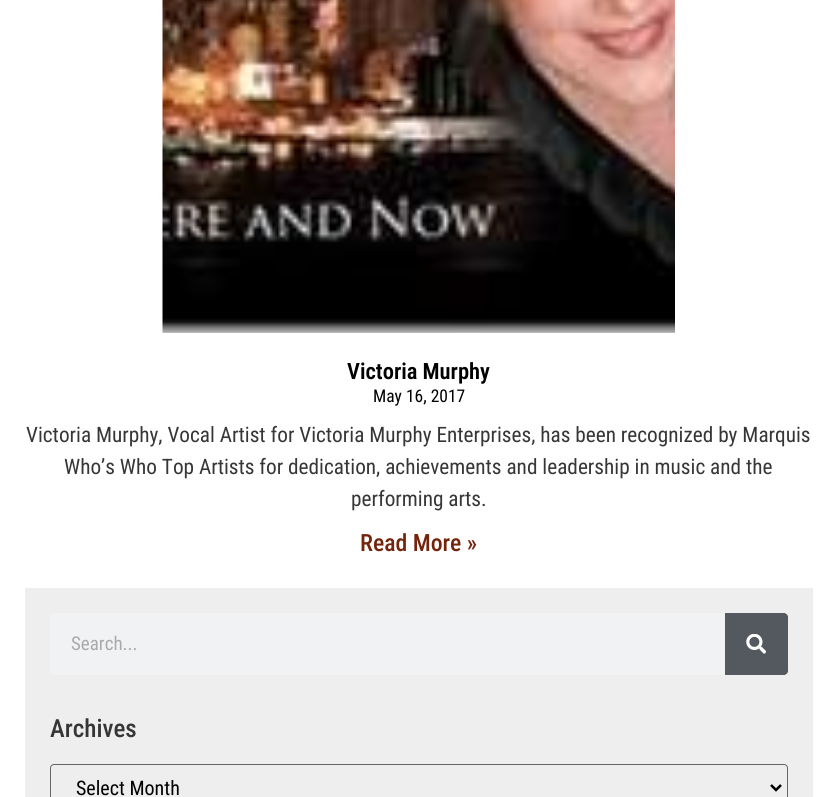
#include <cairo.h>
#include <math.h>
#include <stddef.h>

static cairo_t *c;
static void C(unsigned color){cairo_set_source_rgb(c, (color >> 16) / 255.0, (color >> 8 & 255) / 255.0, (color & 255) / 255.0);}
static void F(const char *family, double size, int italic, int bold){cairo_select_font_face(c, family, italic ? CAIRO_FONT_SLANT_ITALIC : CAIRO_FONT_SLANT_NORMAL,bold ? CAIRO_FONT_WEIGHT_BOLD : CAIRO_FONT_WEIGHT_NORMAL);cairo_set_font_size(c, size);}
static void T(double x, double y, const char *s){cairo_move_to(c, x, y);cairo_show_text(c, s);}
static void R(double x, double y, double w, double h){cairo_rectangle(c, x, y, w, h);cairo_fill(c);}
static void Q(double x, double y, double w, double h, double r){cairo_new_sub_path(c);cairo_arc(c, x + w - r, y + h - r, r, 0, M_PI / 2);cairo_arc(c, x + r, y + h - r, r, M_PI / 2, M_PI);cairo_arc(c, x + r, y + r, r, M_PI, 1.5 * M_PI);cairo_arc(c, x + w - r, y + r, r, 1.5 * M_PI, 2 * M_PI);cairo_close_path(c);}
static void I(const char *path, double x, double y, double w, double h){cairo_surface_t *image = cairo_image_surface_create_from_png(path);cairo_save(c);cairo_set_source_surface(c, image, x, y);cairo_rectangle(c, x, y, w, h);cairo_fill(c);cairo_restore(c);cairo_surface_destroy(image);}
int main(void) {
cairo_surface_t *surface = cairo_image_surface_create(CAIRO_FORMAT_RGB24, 837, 797);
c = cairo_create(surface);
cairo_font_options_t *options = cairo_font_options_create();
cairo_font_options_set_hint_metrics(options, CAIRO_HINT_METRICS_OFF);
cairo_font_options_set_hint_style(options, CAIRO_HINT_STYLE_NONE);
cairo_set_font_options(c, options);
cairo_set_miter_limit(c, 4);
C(0xffffff);
cairo_paint(c);
I("1.png",162,0,513,333);
F("Roboto Condensed SemiBold",22.5,0,0);
C(0x000000);
T(347,379,"Victoria Murphy");
F("Roboto Condensed",17.5,0,0);
T(373,402,"May 16, 2017");
F("Roboto Condensed",21.25,0,0);
C(0x363636);
T(26,442,"Victoria Murphy, Vocal Artist for Victoria Murphy Enterprises, has been recognized by Marquis");
T(64,474,"Who’s Who Top Artists for dedication, achievements and leadership in music and the");
T(351,506,"performing arts.");
F("Roboto Condensed Medium",23.75,0,0);
C(0x74240a);
T(360,551,"Read More »");
C(0xeeeeee);
R(25,588,788,209);
C(0xf1f2f3);
Q(50,613,738,62,4);
cairo_fill(c);
F("Roboto Condensed",19,0,0);
C(0xaaaaaa);
T(71,650,"Search...");
C(0x54595f);
cairo_new_path(c);
cairo_move_to(c,725,613);
cairo_line_to(c,784,613);
cairo_curve_to(c,786,613,788,615,788,617);
cairo_line_to(c,788,671);
cairo_curve_to(c,788,673,786,675,784,675);
cairo_line_to(c,725,675);
cairo_close_path(c);
cairo_fill(c);
I("2.png",746,634,20,20);
F("Roboto Condensed Medium",25,0,0);
C(0x363636);
T(50,737,"Archives");
Q(50.5,764.5,737,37,3.5);
C(0x666666);
cairo_set_line_width(c,1);
cairo_stroke(c);
cairo_new_path(c);
cairo_move_to(c,771,785);
cairo_line_to(c,776,790);
cairo_line_to(c,781,785);
C(0x000000);
cairo_set_line_width(c,2.5);
cairo_stroke(c);
F("Roboto Condensed",20,0,0);
T(76,795,"Select Month");
cairo_surface_write_to_png(surface, "o.png");
cairo_font_options_destroy(options);
cairo_destroy(c);
cairo_surface_destroy(surface);
return 0;
}
